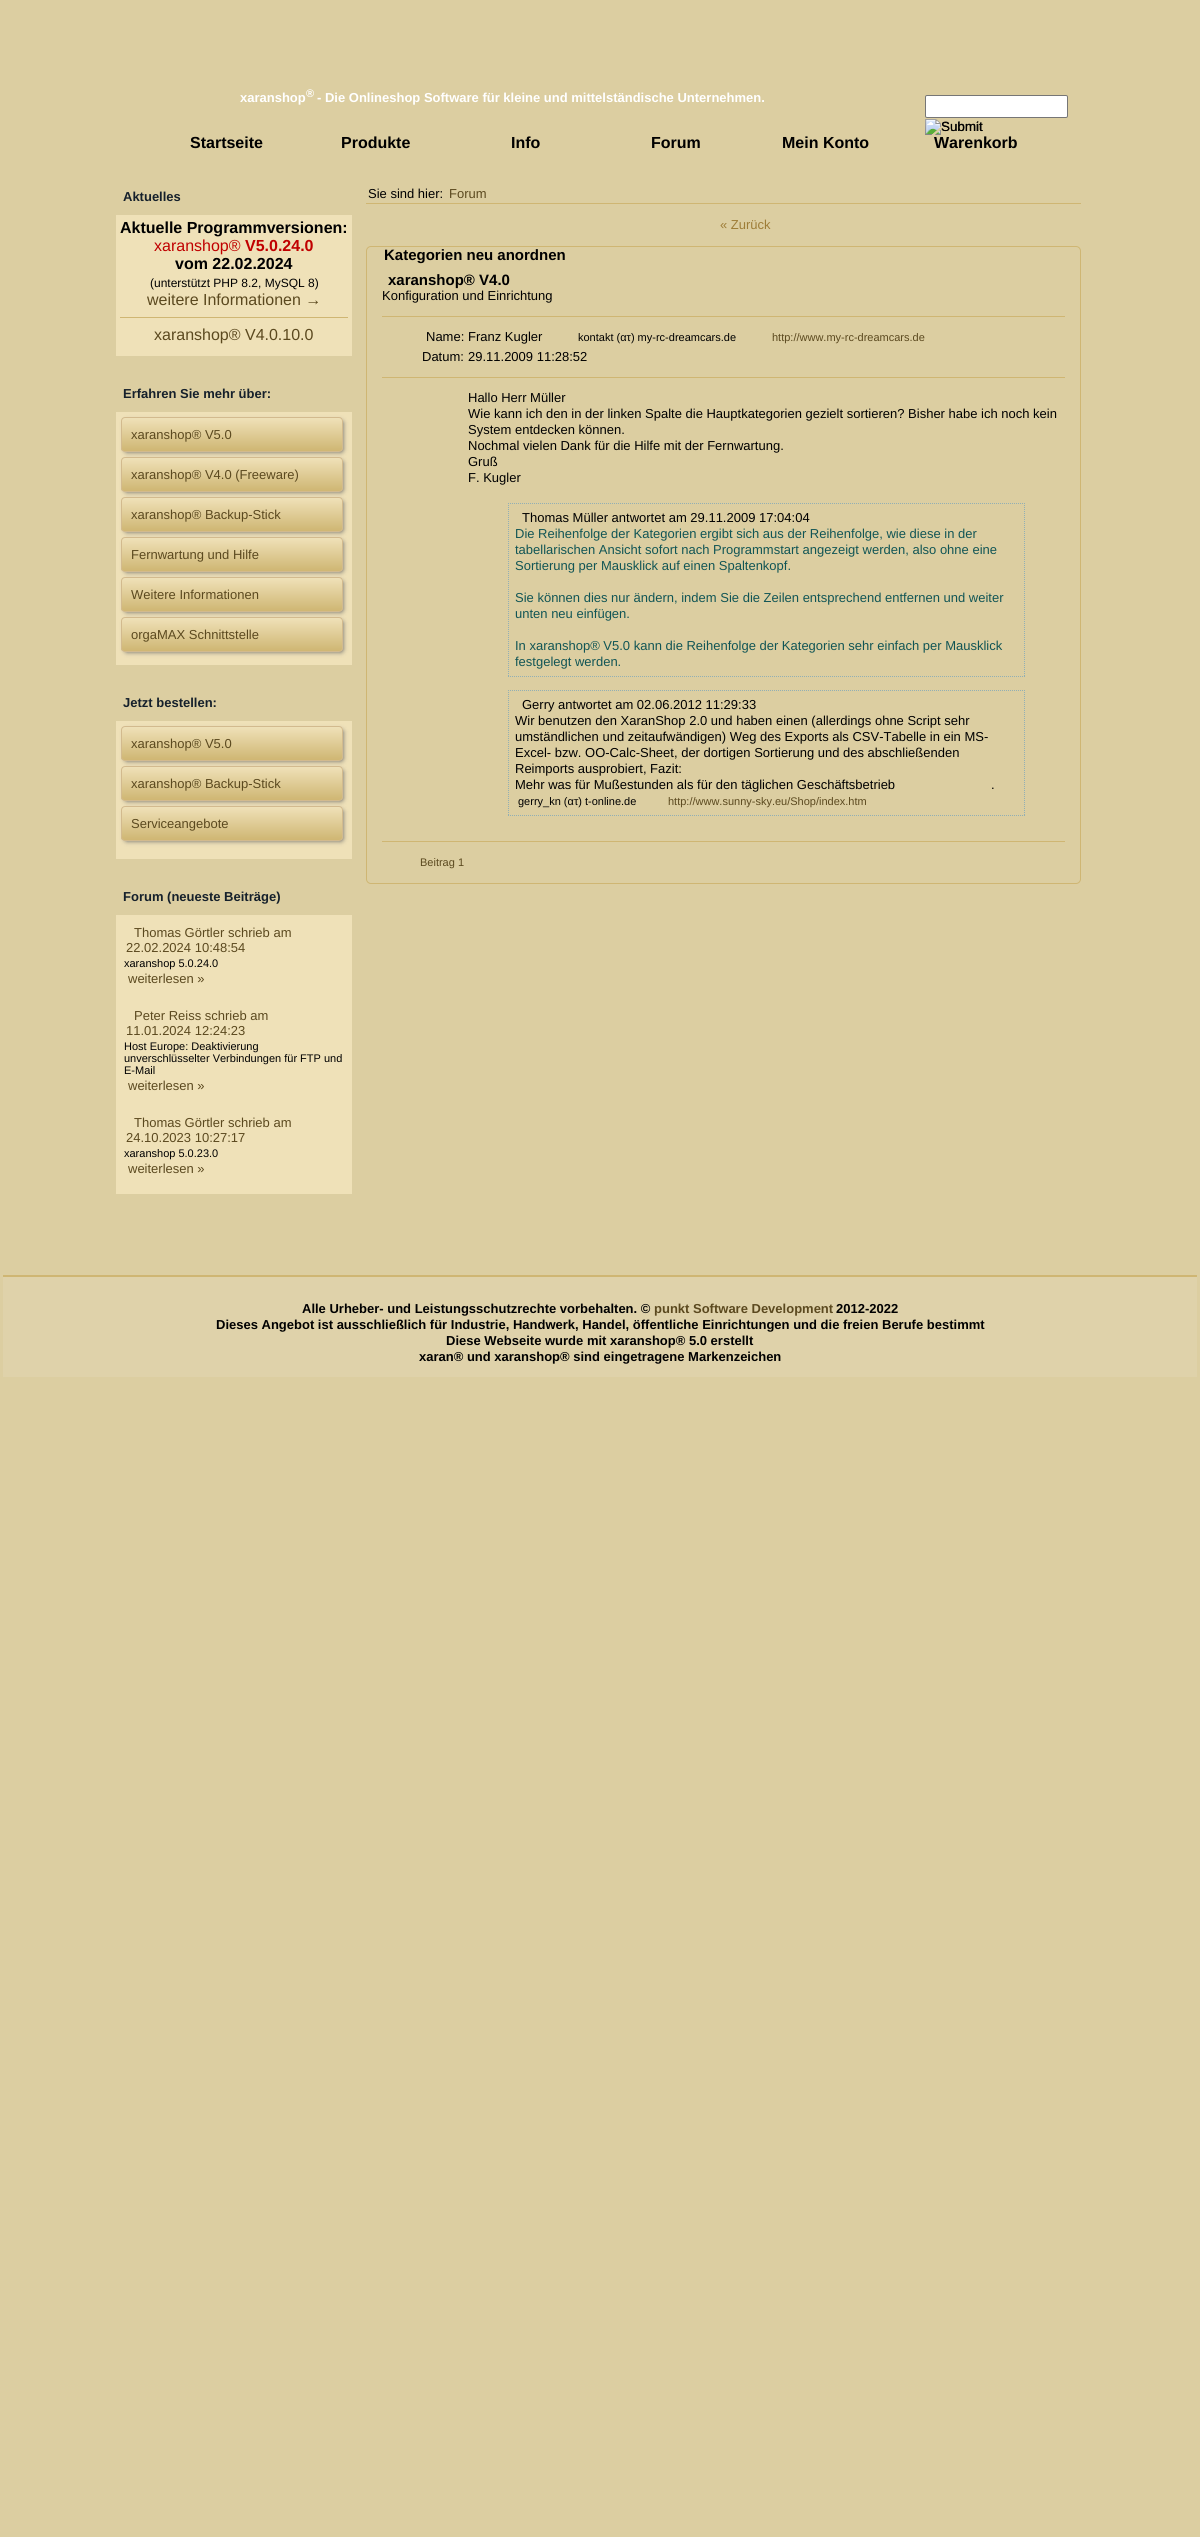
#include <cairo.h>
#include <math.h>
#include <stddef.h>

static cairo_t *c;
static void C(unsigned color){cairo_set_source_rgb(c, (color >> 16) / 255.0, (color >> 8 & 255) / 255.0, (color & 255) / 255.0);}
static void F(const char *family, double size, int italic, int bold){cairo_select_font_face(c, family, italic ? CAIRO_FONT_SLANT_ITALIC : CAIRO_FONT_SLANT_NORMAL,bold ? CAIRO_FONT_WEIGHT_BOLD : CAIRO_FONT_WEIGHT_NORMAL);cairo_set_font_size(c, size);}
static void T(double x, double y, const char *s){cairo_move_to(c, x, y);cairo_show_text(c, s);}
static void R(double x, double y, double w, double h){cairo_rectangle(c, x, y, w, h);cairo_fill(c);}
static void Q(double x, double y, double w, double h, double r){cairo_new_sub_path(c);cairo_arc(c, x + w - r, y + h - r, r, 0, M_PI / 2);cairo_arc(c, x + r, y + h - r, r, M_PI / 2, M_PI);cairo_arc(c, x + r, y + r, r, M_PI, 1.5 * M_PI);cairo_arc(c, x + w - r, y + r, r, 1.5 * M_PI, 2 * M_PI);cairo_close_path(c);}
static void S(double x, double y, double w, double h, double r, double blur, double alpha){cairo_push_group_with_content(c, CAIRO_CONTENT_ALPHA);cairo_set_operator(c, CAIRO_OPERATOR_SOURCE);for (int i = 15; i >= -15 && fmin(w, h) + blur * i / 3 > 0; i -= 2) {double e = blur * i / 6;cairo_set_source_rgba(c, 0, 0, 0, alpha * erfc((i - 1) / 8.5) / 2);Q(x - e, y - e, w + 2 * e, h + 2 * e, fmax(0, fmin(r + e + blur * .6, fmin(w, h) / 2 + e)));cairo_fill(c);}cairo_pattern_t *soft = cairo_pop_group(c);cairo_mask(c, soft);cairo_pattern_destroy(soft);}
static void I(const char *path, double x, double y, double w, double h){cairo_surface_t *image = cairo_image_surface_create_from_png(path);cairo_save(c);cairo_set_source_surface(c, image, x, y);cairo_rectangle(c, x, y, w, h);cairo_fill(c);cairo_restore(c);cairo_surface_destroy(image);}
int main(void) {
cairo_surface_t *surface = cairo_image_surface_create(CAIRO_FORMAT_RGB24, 1200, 2537);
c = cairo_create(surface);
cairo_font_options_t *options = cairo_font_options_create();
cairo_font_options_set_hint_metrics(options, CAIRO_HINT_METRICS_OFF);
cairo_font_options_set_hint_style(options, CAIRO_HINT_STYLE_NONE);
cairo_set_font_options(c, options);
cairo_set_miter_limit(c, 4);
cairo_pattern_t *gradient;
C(0xdccea1);
cairo_paint(c);
F("Liberation Sans",13,0,1);
C(0xffffff);
T(240,102,"xaranshop");
F("Liberation Sans",11,0,1);
T(306,97,"®");
F("Liberation Sans",13,0,1);
T(317,102,"- Die Onlineshop Software für kleine und mittelständische Unternehmen.");
Q(925.5,95.5,142,22,1.5);
cairo_fill_preserve(c);
C(0x767676);
cairo_set_line_width(c,1);
cairo_stroke(c);
I("1.png",925,119,57,16);
F("Liberation Sans",13.5,0,0);
C(0x000000);
T(941,131,"Submit");
F("Liberation Sans",16,0,1);
T(190,148,"Startseite");
T(341,148,"Produkte");
T(511,148,"Info");
T(651,148,"Forum");
T(782,148,"Mein Konto");
T(934,148,"Warenkorb");
F("Liberation Sans",13,0,1);
C(0x15202b);
T(123,201,"Aktuelles");
C(0xefe1b8);
R(116,215,236,141);
F("Liberation Sans",16,0,1);
C(0x000000);
T(120,233,"Aktuelle Programmversionen:");
F("Liberation Sans",16,0,0);
C(0xc00000);
T(154,251,"xaranshop®");
F("Liberation Sans",16,0,1);
T(245,251,"V5.0.24.0");
C(0x000000);
T(175,269,"vom 22.02.2024");
F("Liberation Sans",12,0,0);
T(150,287,"(unterstützt PHP 8.2, MySQL 8)");
F("Liberation Sans",16,0,0);
C(0x5b491f);
T(147,305,"weitere Informationen →");
C(0xcfb673);
R(120,317,228,1);
C(0x5b491f);
T(154,340,"xaranshop® V4.0.10.0");
F("Liberation Sans",13,0,1);
C(0x15202b);
T(123,398,"Erfahren Sie mehr über:");
C(0xefe1b8);
R(116,412,236,253);
C(0x666666);
S(125,421,218,31,2,2.5,1);
cairo_save(c);
Q(121,417,222,35,4);
cairo_clip(c);
gradient = cairo_pattern_create_linear(232,418,232,451);
cairo_pattern_add_color_stop_rgba(gradient,0,0.937,0.882,0.722,1);
cairo_pattern_add_color_stop_rgba(gradient,1,0.812,0.714,0.451,1);
cairo_set_source(c,gradient);
cairo_pattern_destroy(gradient);
R(121,418,222,33);
cairo_restore(c);
Q(121.5,417.5,221,34,3.5);
C(0xd2ba8e);
cairo_stroke(c);
F("Liberation Sans",13,0,0);
C(0x5b491f);
T(131,439,"xaranshop® V5.0");
C(0x666666);
S(125,461,218,31,2,2.5,1);
cairo_save(c);
Q(121,457,222,35,4);
cairo_clip(c);
gradient = cairo_pattern_create_linear(232,458,232,491);
cairo_pattern_add_color_stop_rgba(gradient,0,0.937,0.882,0.722,1);
cairo_pattern_add_color_stop_rgba(gradient,1,0.812,0.714,0.451,1);
cairo_set_source(c,gradient);
cairo_pattern_destroy(gradient);
R(121,458,222,33);
cairo_restore(c);
Q(121.5,457.5,221,34,3.5);
C(0xd2ba8e);
cairo_stroke(c);
C(0x5b491f);
T(131,479,"xaranshop® V4.0 (Freeware)");
C(0x666666);
S(125,501,218,31,2,2.5,1);
cairo_save(c);
Q(121,497,222,35,4);
cairo_clip(c);
gradient = cairo_pattern_create_linear(232,498,232,531);
cairo_pattern_add_color_stop_rgba(gradient,0,0.937,0.882,0.722,1);
cairo_pattern_add_color_stop_rgba(gradient,1,0.812,0.714,0.451,1);
cairo_set_source(c,gradient);
cairo_pattern_destroy(gradient);
R(121,498,222,33);
cairo_restore(c);
Q(121.5,497.5,221,34,3.5);
C(0xd2ba8e);
cairo_stroke(c);
C(0x5b491f);
T(131,519,"xaranshop® Backup-Stick");
C(0x666666);
S(125,541,218,31,2,2.5,1);
cairo_save(c);
Q(121,537,222,35,4);
cairo_clip(c);
gradient = cairo_pattern_create_linear(232,538,232,571);
cairo_pattern_add_color_stop_rgba(gradient,0,0.937,0.882,0.722,1);
cairo_pattern_add_color_stop_rgba(gradient,1,0.812,0.714,0.451,1);
cairo_set_source(c,gradient);
cairo_pattern_destroy(gradient);
R(121,538,222,33);
cairo_restore(c);
Q(121.5,537.5,221,34,3.5);
C(0xd2ba8e);
cairo_stroke(c);
C(0x5b491f);
T(131,559,"Fernwartung und Hilfe");
C(0x666666);
S(125,581,218,31,2,2.5,1);
cairo_save(c);
Q(121,577,222,35,4);
cairo_clip(c);
gradient = cairo_pattern_create_linear(232,578,232,611);
cairo_pattern_add_color_stop_rgba(gradient,0,0.937,0.882,0.722,1);
cairo_pattern_add_color_stop_rgba(gradient,1,0.812,0.714,0.451,1);
cairo_set_source(c,gradient);
cairo_pattern_destroy(gradient);
R(121,578,222,33);
cairo_restore(c);
Q(121.5,577.5,221,34,3.5);
C(0xd2ba8e);
cairo_stroke(c);
C(0x5b491f);
T(131,599,"Weitere Informationen");
C(0x666666);
S(125,621,218,31,2,2.5,1);
cairo_save(c);
Q(121,617,222,35,4);
cairo_clip(c);
gradient = cairo_pattern_create_linear(232,618,232,651);
cairo_pattern_add_color_stop_rgba(gradient,0,0.937,0.882,0.722,1);
cairo_pattern_add_color_stop_rgba(gradient,1,0.812,0.714,0.451,1);
cairo_set_source(c,gradient);
cairo_pattern_destroy(gradient);
R(121,618,222,33);
cairo_restore(c);
Q(121.5,617.5,221,34,3.5);
C(0xd2ba8e);
cairo_stroke(c);
C(0x5b491f);
T(131,639,"orgaMAX Schnittstelle");
F("Liberation Sans",13,0,1);
C(0x15202b);
T(123,707,"Jetzt bestellen:");
C(0xefe1b8);
R(116,721,236,138);
C(0x666666);
S(125,730,218,31,2,2.5,1);
cairo_save(c);
Q(121,726,222,35,4);
cairo_clip(c);
gradient = cairo_pattern_create_linear(232,727,232,760);
cairo_pattern_add_color_stop_rgba(gradient,0,0.937,0.882,0.722,1);
cairo_pattern_add_color_stop_rgba(gradient,1,0.812,0.714,0.451,1);
cairo_set_source(c,gradient);
cairo_pattern_destroy(gradient);
R(121,727,222,33);
cairo_restore(c);
Q(121.5,726.5,221,34,3.5);
C(0xd2ba8e);
cairo_stroke(c);
F("Liberation Sans",13,0,0);
C(0x5b491f);
T(131,748,"xaranshop® V5.0");
C(0x666666);
S(125,770,218,31,2,2.5,1);
cairo_save(c);
Q(121,766,222,35,4);
cairo_clip(c);
gradient = cairo_pattern_create_linear(232,767,232,800);
cairo_pattern_add_color_stop_rgba(gradient,0,0.937,0.882,0.722,1);
cairo_pattern_add_color_stop_rgba(gradient,1,0.812,0.714,0.451,1);
cairo_set_source(c,gradient);
cairo_pattern_destroy(gradient);
R(121,767,222,33);
cairo_restore(c);
Q(121.5,766.5,221,34,3.5);
C(0xd2ba8e);
cairo_stroke(c);
C(0x5b491f);
T(131,788,"xaranshop® Backup-Stick");
C(0x666666);
S(125,810,218,31,2,2.5,1);
cairo_save(c);
Q(121,806,222,35,4);
cairo_clip(c);
gradient = cairo_pattern_create_linear(232,807,232,840);
cairo_pattern_add_color_stop_rgba(gradient,0,0.937,0.882,0.722,1);
cairo_pattern_add_color_stop_rgba(gradient,1,0.812,0.714,0.451,1);
cairo_set_source(c,gradient);
cairo_pattern_destroy(gradient);
R(121,807,222,33);
cairo_restore(c);
Q(121.5,806.5,221,34,3.5);
C(0xd2ba8e);
cairo_stroke(c);
C(0x5b491f);
T(131,828,"Serviceangebote");
F("Liberation Sans",13,0,1);
C(0x15202b);
T(123,901,"Forum (neueste Beiträge)");
C(0xefe1b8);
R(116,915,236,279);
F("Liberation Sans",13,0,0);
C(0x5b491f);
T(134,937,"Thomas Görtler schrieb am");
T(126,952,"22.02.2024 10:48:54");
F("Liberation Sans",11,0,0);
C(0x000000);
T(124,967,"xaranshop 5.0.24.0");
F("Liberation Sans",13,0,0);
C(0x5b491f);
T(128,983,"weiterlesen »");
T(134,1020,"Peter Reiss schrieb am");
T(126,1035,"11.01.2024 12:24:23");
F("Liberation Sans",11,0,0);
C(0x000000);
T(124,1050,"Host Europe: Deaktivierung");
T(124,1062,"unverschlüsselter Verbindungen für FTP und");
T(124,1074,"E-Mail");
F("Liberation Sans",13,0,0);
C(0x5b491f);
T(128,1090,"weiterlesen »");
T(134,1127,"Thomas Görtler schrieb am");
T(126,1142,"24.10.2023 10:27:17");
F("Liberation Sans",11,0,0);
C(0x000000);
T(124,1157,"xaranshop 5.0.23.0");
F("Liberation Sans",13,0,0);
C(0x5b491f);
T(128,1173,"weiterlesen »");
C(0xcfb673);
R(366,203,715,1);
C(0x000000);
T(368,198,"Sie sind hier:");
C(0x5b491f);
T(449,198,"Forum");
C(0x9e7d37);
T(720,229,"« Zurück");
Q(366.5,246.5,714,637,4.5);
C(0xcfb673);
cairo_stroke(c);
F("Liberation Sans",15,0,1);
C(0x000000);
T(384,260,"Kategorien neu anordnen");
T(388,285,"xaranshop® V4.0");
F("Liberation Sans",13,0,0);
T(382,300,"Konfiguration und Einrichtung");
C(0xcfb673);
R(382,316,683,1);
C(0x000000);
T(426,341,"Name:");
T(468,341,"Franz Kugler");
F("Liberation Sans",11,0,0);
T(578,341,"kontakt (ατ) my-rc-dreamcars.de");
C(0x5b491f);
T(772,341,"http://www.my-rc-dreamcars.de");
F("Liberation Sans",13,0,0);
C(0x000000);
T(422,361,"Datum:");
T(468,361,"29.11.2009 11:28:52");
C(0xcfb673);
R(382,377,683,1);
C(0x000000);
T(468,402,"Hallo Herr Müller");
T(468,418,"Wie kann ich den in der linken Spalte die Hauptkategorien gezielt sortieren? Bisher habe ich noch kein");
T(468,434,"System entdecken können.");
T(468,450,"Nochmal vielen Dank für die Hilfe mit der Fernwartung.");
T(468,466,"Gruß");
T(468,482,"F. Kugler");
cairo_new_path(c);
cairo_move_to(c,508,503.5);
cairo_line_to(c,1025,503.5);
C(0x91afb5);
cairo_set_dash(c,(double[]){1,1},2,0);
cairo_stroke(c);
cairo_new_path(c);
cairo_move_to(c,1024.5,503);
cairo_line_to(c,1024.5,677);
cairo_stroke(c);
cairo_new_path(c);
cairo_move_to(c,508,676.5);
cairo_line_to(c,1025,676.5);
cairo_stroke(c);
cairo_new_path(c);
cairo_move_to(c,508.5,503);
cairo_line_to(c,508.5,677);
cairo_stroke(c);
C(0x000000);
T(522,522,"Thomas Müller antwortet am 29.11.2009 17:04:04");
C(0x115555);
T(515,538,"Die Reihenfolge der Kategorien ergibt sich aus der Reihenfolge, wie diese in der");
T(515,554,"tabellarischen Ansicht sofort nach Programmstart angezeigt werden, also ohne eine");
T(515,570,"Sortierung per Mausklick auf einen Spaltenkopf.");
T(515,602,"Sie können dies nur ändern, indem Sie die Zeilen entsprechend entfernen und weiter");
T(515,618,"unten neu einfügen.");
T(515,650,"In xaranshop® V5.0 kann die Reihenfolge der Kategorien sehr einfach per Mausklick");
T(515,666,"festgelegt werden.");
cairo_new_path(c);
cairo_move_to(c,508,690.5);
cairo_line_to(c,1025,690.5);
C(0x91afb5);
cairo_stroke(c);
cairo_new_path(c);
cairo_move_to(c,1024.5,690);
cairo_line_to(c,1024.5,816);
cairo_stroke(c);
cairo_new_path(c);
cairo_move_to(c,508,815.5);
cairo_line_to(c,1025,815.5);
cairo_stroke(c);
cairo_new_path(c);
cairo_move_to(c,508.5,690);
cairo_line_to(c,508.5,816);
cairo_stroke(c);
C(0x000000);
T(522,709,"Gerry antwortet am 02.06.2012 11:29:33");
T(515,725,"Wir benutzen den XaranShop 2.0 und haben einen (allerdings ohne Script sehr");
T(515,741,"umständlichen und zeitaufwändigen) Weg des Exports als CSV-Tabelle in ein MS-");
T(515,757,"Excel- bzw. OO-Calc-Sheet, der dortigen Sortierung und des abschließenden");
T(515,773,"Reimports ausprobiert, Fazit:");
T(515,789,"Mehr was für Mußestunden als für den täglichen Geschäftsbetrieb");
T(991,789,".");
F("Liberation Sans",11,0,0);
T(518,805,"gerry_kn (ατ) t-online.de");
C(0x5b491f);
T(668,805,"http://www.sunny-sky.eu/Shop/index.htm");
C(0xcfb673);
R(382,841,683,1);
C(0x5b491f);
T(420,866,"Beitrag 1");
C(0xdfd2aa);
R(3,1277,1194,100);
C(0xcfb673);
R(3,1275,1194,2);
F("Liberation Sans",13,0,1);
C(0x000000);
T(302,1313,"Alle Urheber- und Leistungsschutzrechte vorbehalten. ©");
C(0x5b491f);
T(654,1313,"punkt Software Development");
C(0x000000);
T(836,1313,"2012-2022");
T(216,1329,"Dieses Angebot ist ausschließlich für Industrie, Handwerk, Handel, öffentliche Einrichtungen und die freien Berufe bestimmt");
T(446,1345,"Diese Webseite wurde mit xaranshop® 5.0 erstellt");
T(419,1361,"xaran® und xaranshop® sind eingetragene Markenzeichen");
cairo_surface_write_to_png(surface, "o.png");
cairo_font_options_destroy(options);
cairo_destroy(c);
cairo_surface_destroy(surface);
return 0;
}
